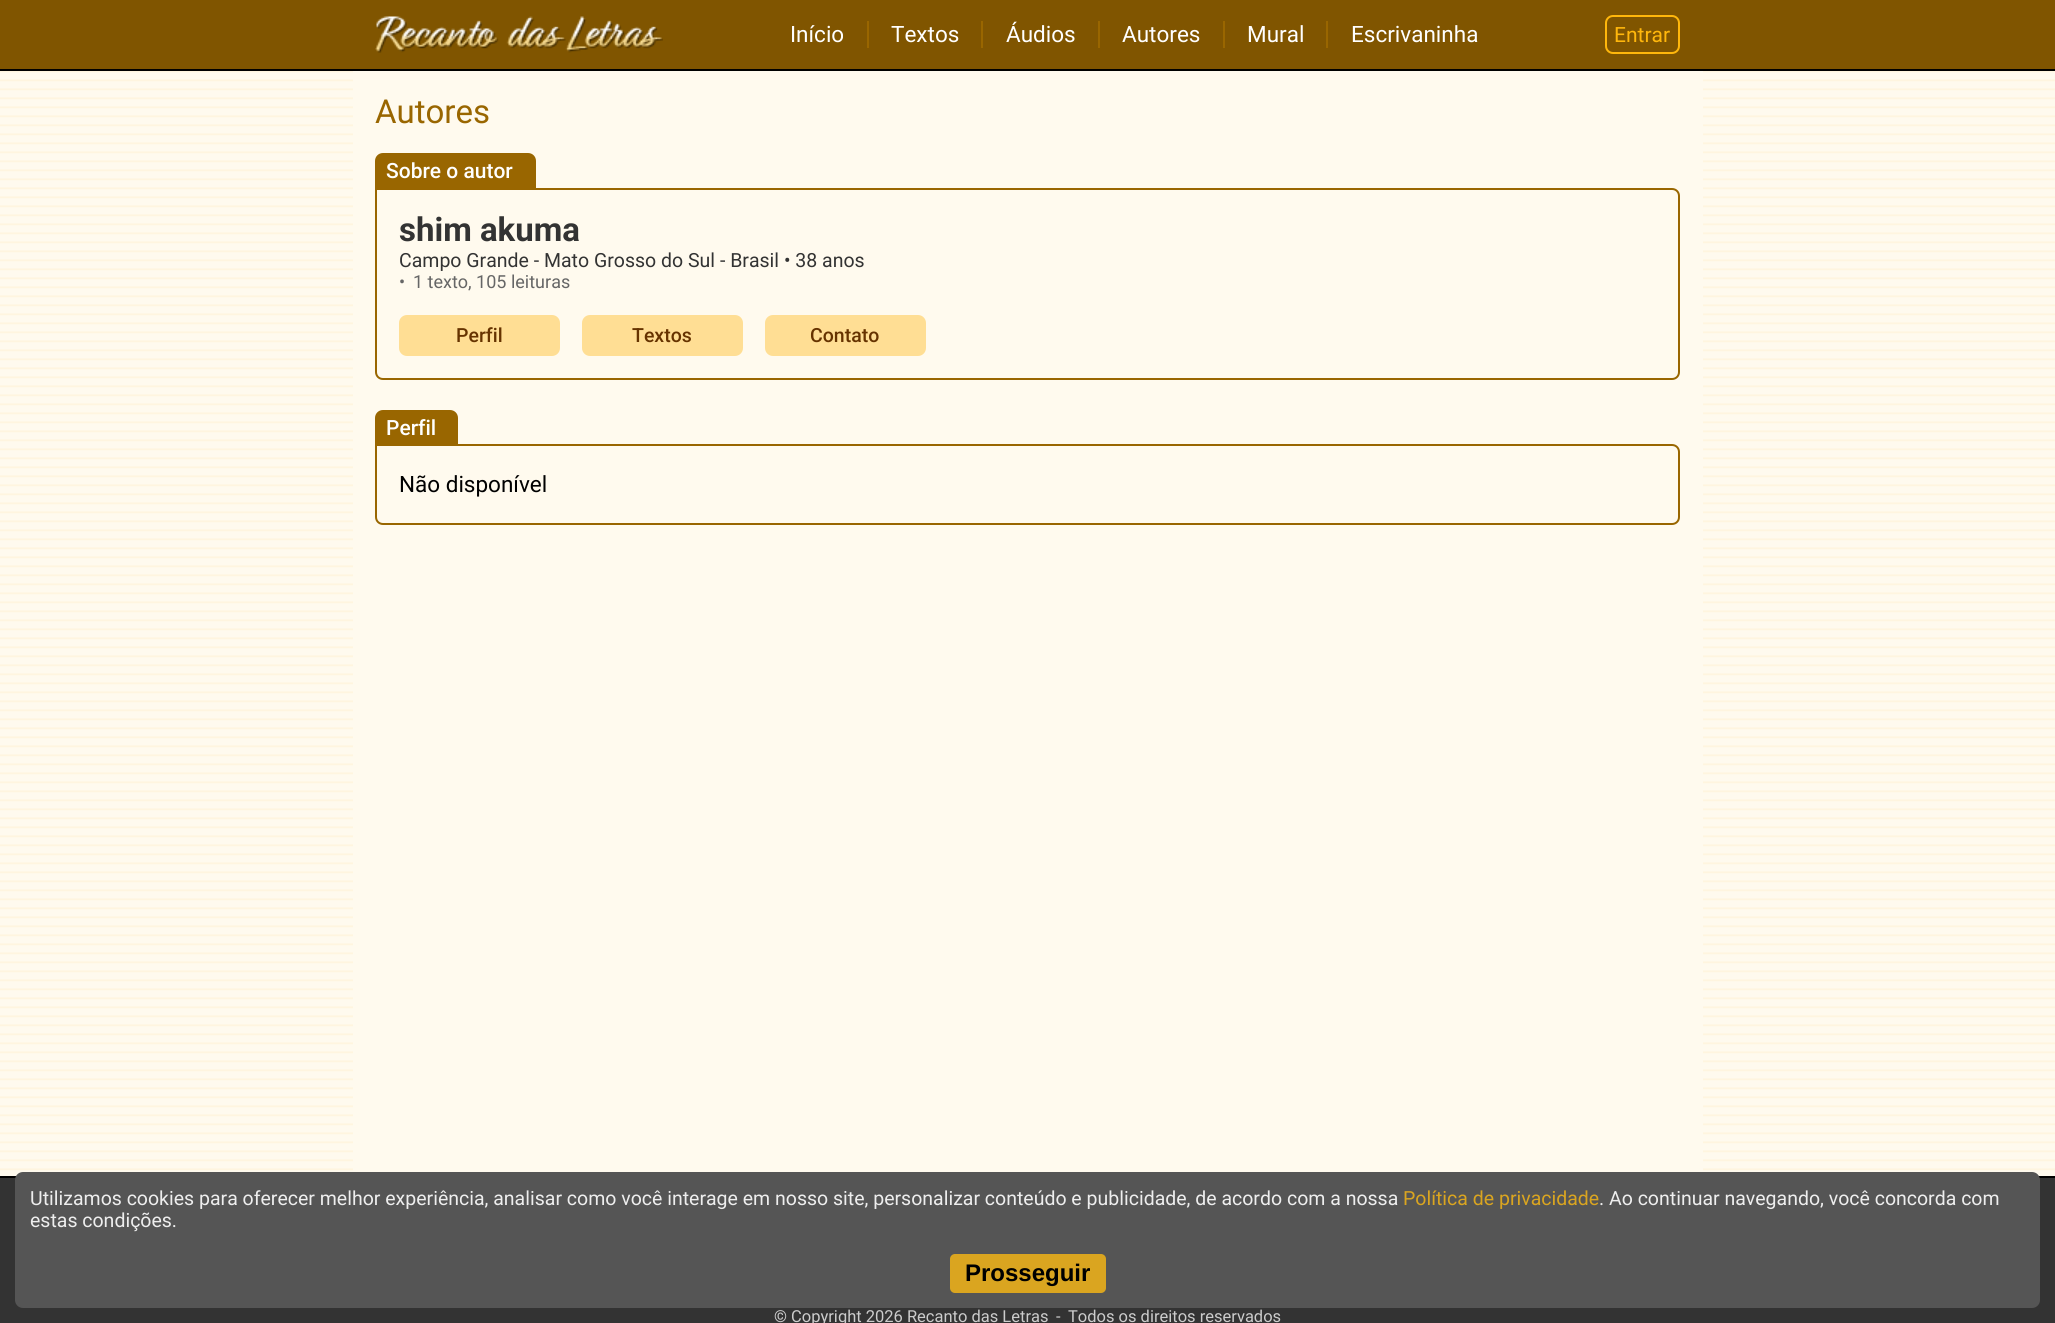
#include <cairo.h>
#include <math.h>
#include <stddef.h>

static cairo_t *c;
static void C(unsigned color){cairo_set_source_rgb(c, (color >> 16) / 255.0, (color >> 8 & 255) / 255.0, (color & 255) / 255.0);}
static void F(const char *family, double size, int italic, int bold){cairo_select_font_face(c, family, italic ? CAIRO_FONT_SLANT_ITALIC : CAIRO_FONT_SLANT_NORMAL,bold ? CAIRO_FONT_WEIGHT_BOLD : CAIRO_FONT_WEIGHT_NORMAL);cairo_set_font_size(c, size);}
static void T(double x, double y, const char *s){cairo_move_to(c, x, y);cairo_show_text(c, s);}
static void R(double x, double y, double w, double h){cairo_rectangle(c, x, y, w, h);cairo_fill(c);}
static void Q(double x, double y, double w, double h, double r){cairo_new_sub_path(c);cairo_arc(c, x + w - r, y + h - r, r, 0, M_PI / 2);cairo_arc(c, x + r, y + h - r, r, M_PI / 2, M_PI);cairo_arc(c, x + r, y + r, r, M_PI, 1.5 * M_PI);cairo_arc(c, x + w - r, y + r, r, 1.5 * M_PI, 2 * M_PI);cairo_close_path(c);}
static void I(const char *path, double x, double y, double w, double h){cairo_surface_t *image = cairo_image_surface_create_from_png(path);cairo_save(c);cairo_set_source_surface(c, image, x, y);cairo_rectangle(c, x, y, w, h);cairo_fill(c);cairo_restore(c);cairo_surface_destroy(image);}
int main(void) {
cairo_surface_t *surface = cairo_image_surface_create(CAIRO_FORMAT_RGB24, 2055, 1323);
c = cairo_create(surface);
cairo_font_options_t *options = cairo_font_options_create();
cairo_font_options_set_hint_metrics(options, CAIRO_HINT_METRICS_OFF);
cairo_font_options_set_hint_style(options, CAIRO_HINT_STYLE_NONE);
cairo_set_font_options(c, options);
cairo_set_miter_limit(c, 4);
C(0xffffff);
cairo_paint(c);
I("1.png",0,71,2055,1105);
C(0x805500);
R(0,0,2055,69);
C(0x000000);
R(0,69,2055,2);
I("2.png",375,16,288,37);
C(0x996600);
R(867,21,2,27);
F("Roboto",22.5,0,0);
C(0xffffff);
T(790,42,"Início");
C(0x996600);
R(981,21,2,27);
C(0xffffff);
T(891,42,"Textos");
C(0x996600);
R(1098,21,2,27);
C(0xffffff);
T(1006,42,"Áudios");
C(0x996600);
R(1223,21,2,27);
C(0xffffff);
T(1122,42,"Autores");
C(0x996600);
R(1326,21,2,27);
C(0xffffff);
T(1247,42,"Mural");
T(1351,42,"Escrivaninha");
Q(1606,16,73,37,7);
C(0xffb70c);
cairo_stroke(c);
F("Roboto",21,0,0);
T(1614,42,"Entrar");
C(0xfffaee);
R(353,71,1350,1100);
F("Roboto",33,0,0);
C(0x996600);
T(375,123,"Autores");
cairo_new_path(c);
cairo_move_to(c,383,153);
cairo_line_to(c,528,153);
cairo_curve_to(c,532.5,153,536,156.5,536,161);
cairo_line_to(c,536,188);
cairo_line_to(c,375,188);
cairo_line_to(c,375,161);
cairo_curve_to(c,375,156.5,378.5,153,383,153);
cairo_close_path(c);
cairo_fill(c);
F("Roboto Medium",21,0,0);
C(0xffffff);
T(386,178,"Sobre o autor");
cairo_new_path(c);
cairo_move_to(c,376,189);
cairo_line_to(c,1672,189);
cairo_curve_to(c,1676,189,1679,192,1679,196);
cairo_line_to(c,1679,372);
cairo_curve_to(c,1679,376,1676,379,1672,379);
cairo_line_to(c,383,379);
cairo_curve_to(c,379,379,376,376,376,372);
cairo_close_path(c);
C(0x996600);
cairo_stroke(c);
F("Roboto",33,0,1);
C(0x333333);
T(399,241,"shim akuma");
F("Roboto",19.5,0,0);
T(399,267,"Campo Grande - Mato Grosso do Sul - Brasil • 38 anos");
F("Roboto",18,0,0);
C(0x666666);
T(399,288,"•");
T(413,288,"1 texto, 105 leituras");
C(0xffde94);
Q(399,315,161,41,8);
cairo_fill(c);
F("Roboto Medium",19.5,0,0);
C(0x663300);
T(456,342,"Perfil");
C(0xffde94);
Q(582,315,161,41,8);
cairo_fill(c);
C(0x663300);
T(632,342,"Textos");
C(0xffde94);
Q(765,315,161,41,8);
cairo_fill(c);
C(0x663300);
T(810,342,"Contato");
C(0x996600);
cairo_new_path(c);
cairo_move_to(c,383,410);
cairo_line_to(c,450,410);
cairo_curve_to(c,454.5,410,458,413.5,458,418);
cairo_line_to(c,458,444);
cairo_line_to(c,375,444);
cairo_line_to(c,375,418);
cairo_curve_to(c,375,413.5,378.5,410,383,410);
cairo_close_path(c);
cairo_fill(c);
F("Roboto Medium",21,0,0);
C(0xffffff);
T(386,435,"Perfil");
cairo_new_path(c);
cairo_move_to(c,376,445);
cairo_line_to(c,1672,445);
cairo_curve_to(c,1676,445,1679,448,1679,452);
cairo_line_to(c,1679,517);
cairo_curve_to(c,1679,521,1676,524,1672,524);
cairo_line_to(c,383,524);
cairo_curve_to(c,379,524,376,521,376,517);
cairo_close_path(c);
C(0x996600);
cairo_stroke(c);
F("Roboto",22.5,0,0);
C(0x000000);
T(399,492,"Não disponível");
C(0x333333);
R(0,1178,2055,145);
C(0x000000);
R(0,1176,2055,2);
C(0x555555);
Q(15,1172,2025,136,8);
cairo_fill(c);
F("Roboto",19.5,0,0);
C(0xeeeeee);
T(30,1205,"Utilizamos cookies para oferecer melhor experiência, analisar como você interage em nosso site, personalizar conteúdo e publicidade, de acordo com a nossa");
C(0xdaa520);
T(1403,1205,"Política de privacidade");
C(0xeeeeee);
T(1599,1205,". Ao continuar navegando, você concorda com");
T(30,1227,"estas condições.");
C(0xdaa520);
Q(950,1254,156,39,5);
cairo_fill(c);
F("Liberation Sans",24,0,1);
C(0x000000);
T(965,1281,"Prosseguir");
F("Roboto",16.5,0,0);
C(0xcccccc);
T(774,1322,"© Copyright 2026 Recanto das Letras");
T(1056,1322,"-");
T(1068,1322,"Todos os direitos reservados");
cairo_surface_write_to_png(surface, "o.png");
cairo_font_options_destroy(options);
cairo_destroy(c);
cairo_surface_destroy(surface);
return 0;
}
